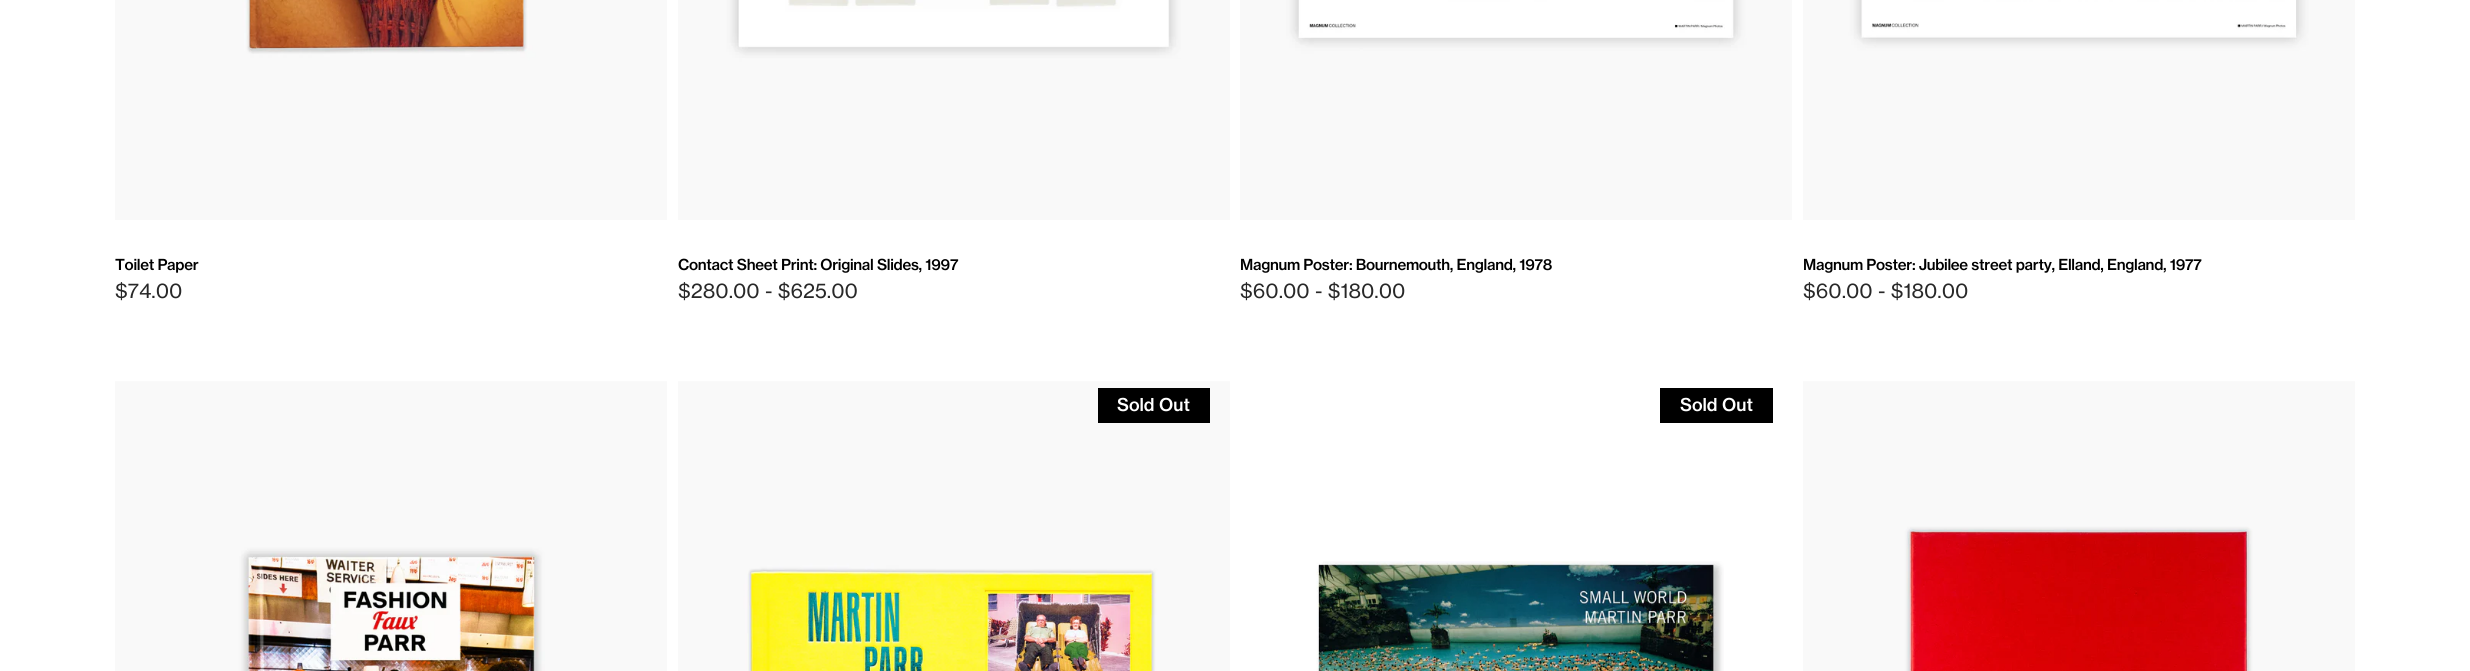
#include <cairo.h>
#include <math.h>
#include <stddef.h>

static cairo_t *c;
static void C(unsigned color){cairo_set_source_rgb(c, (color >> 16) / 255.0, (color >> 8 & 255) / 255.0, (color & 255) / 255.0);}
static void F(const char *family, double size, int italic, int bold){cairo_select_font_face(c, family, italic ? CAIRO_FONT_SLANT_ITALIC : CAIRO_FONT_SLANT_NORMAL,bold ? CAIRO_FONT_WEIGHT_BOLD : CAIRO_FONT_WEIGHT_NORMAL);cairo_set_font_size(c, size);}
static void T(double x, double y, const char *s){cairo_move_to(c, x, y);cairo_show_text(c, s);}
static void L(double x, double y, const char *s, double letter, double word){cairo_move_to(c, x, y);while (*s) {char ch[5] = {0};int n = 0;do ch[n++] = *s++; while ((*s & 0xC0) == 0x80);cairo_show_text(c, ch);cairo_rel_move_to(c, letter + word * (*ch == ' '), 0);}}
static void R(double x, double y, double w, double h){cairo_rectangle(c, x, y, w, h);cairo_fill(c);}
static void I(const char *path, double x, double y, double w, double h){cairo_surface_t *image = cairo_image_surface_create_from_png(path);cairo_save(c);cairo_set_source_surface(c, image, x, y);cairo_rectangle(c, x, y, w, h);cairo_fill(c);cairo_restore(c);cairo_surface_destroy(image);}
int main(void) {
cairo_surface_t *surface = cairo_image_surface_create(CAIRO_FORMAT_RGB24, 2470, 671);
c = cairo_create(surface);
cairo_font_options_t *options = cairo_font_options_create();
cairo_font_options_set_hint_metrics(options, CAIRO_HINT_METRICS_OFF);
cairo_font_options_set_hint_style(options, CAIRO_HINT_STYLE_NONE);
cairo_set_font_options(c, options);
cairo_set_miter_limit(c, 4);
C(0xffffff);
cairo_paint(c);
I("1.png",115,0,552,220);
F("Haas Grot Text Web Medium",15,0,0);
C(0x000000);
L(115,270,"Toilet Paper",-.3,0);
F("Haas Grot Text Web",20,0,0);
C(0x282828);
T(115,298,"$74.00");
I("2.png",678,0,552,220);
F("Haas Grot Text Web Medium",15,0,0);
C(0x000000);
L(678,270,"Contact Sheet Print: Original Slides, 1997",-.3,0);
F("Haas Grot Text Web",20,0,0);
C(0x282828);
T(678,298,"$280.00 - $625.00");
I("3.png",1240,0,552,220);
F("Haas Grot Text Web Medium",15,0,0);
C(0x000000);
L(1240,270,"Magnum Poster: Bournemouth, England, 1978",-.3,0);
F("Haas Grot Text Web",20,0,0);
C(0x282828);
T(1240,298,"$60.00 - $180.00");
I("4.png",1803,0,552,220);
F("Haas Grot Text Web Medium",15,0,0);
C(0x000000);
L(1803,270,"Magnum Poster: Jubilee street party, Elland, England, 1977",-.3,0);
F("Haas Grot Text Web",20,0,0);
C(0x282828);
T(1803,298,"$60.00 - $180.00");
I("5.png",115,381,552,290);
I("6.png",678,381,552,290);
C(0x000000);
R(1098,388,112,35);
F("Haas Grot Text Web Medium",17.5,0,0);
C(0xffffff);
T(1117,411,"Sold Out");
C(0x000000);
R(1660,388,113,35);
C(0xffffff);
T(1680,411,"Sold Out");
I("7.png",1316,561,408,110);
I("8.png",1803,381,552,290);
cairo_surface_write_to_png(surface, "o.png");
cairo_font_options_destroy(options);
cairo_destroy(c);
cairo_surface_destroy(surface);
return 0;
}
